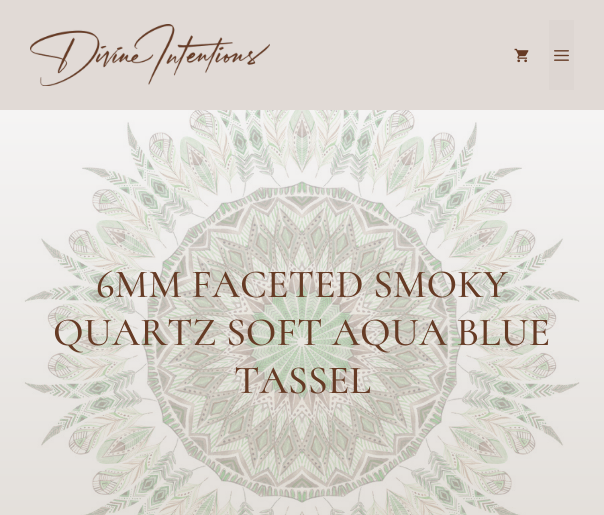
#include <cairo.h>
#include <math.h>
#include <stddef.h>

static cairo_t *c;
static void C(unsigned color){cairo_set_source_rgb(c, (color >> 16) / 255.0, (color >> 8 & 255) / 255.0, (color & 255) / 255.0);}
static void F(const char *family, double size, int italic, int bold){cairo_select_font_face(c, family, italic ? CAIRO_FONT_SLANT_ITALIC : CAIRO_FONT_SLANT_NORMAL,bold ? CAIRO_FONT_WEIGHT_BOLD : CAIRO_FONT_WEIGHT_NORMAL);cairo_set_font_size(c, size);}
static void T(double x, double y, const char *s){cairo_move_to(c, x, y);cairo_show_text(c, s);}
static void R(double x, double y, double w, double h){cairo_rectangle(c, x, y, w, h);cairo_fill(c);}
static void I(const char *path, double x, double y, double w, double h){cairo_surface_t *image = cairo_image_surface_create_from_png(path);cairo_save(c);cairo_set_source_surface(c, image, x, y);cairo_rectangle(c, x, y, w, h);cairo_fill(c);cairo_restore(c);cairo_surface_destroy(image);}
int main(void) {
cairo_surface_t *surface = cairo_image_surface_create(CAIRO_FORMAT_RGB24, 604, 515);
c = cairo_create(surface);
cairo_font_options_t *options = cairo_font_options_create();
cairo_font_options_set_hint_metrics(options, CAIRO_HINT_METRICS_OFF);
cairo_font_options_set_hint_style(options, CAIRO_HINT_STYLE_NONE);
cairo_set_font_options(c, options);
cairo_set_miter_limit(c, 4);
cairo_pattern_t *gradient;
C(0xe1dad6);
cairo_paint(c);
I("1.png",30,24,240,62);
I("2.png",514,48,15,15);
C(0xddd6d2);
R(549,20,25,70);
I("3.png",554,50,15,11);
gradient = cairo_pattern_create_linear(302,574,302,110);
cairo_pattern_add_color_stop_rgba(gradient,0,0.706,0.663,0.612,1);
cairo_pattern_add_color_stop_rgba(gradient,1,0.902,0.894,0.894,1);
cairo_set_source(c,gradient);
cairo_pattern_destroy(gradient);
R(0,110,604,405);
I("4.png",0,110,604,405);
F("Cormorant Medium",40,0,0);
C(0x663b25);
T(96,297,"6MM FACETED SMOKY");
T(53,345,"QUARTZ SOFT AQUA BLUE");
T(234,393,"TASSEL");
cairo_surface_write_to_png(surface, "o.png");
cairo_font_options_destroy(options);
cairo_destroy(c);
cairo_surface_destroy(surface);
return 0;
}
